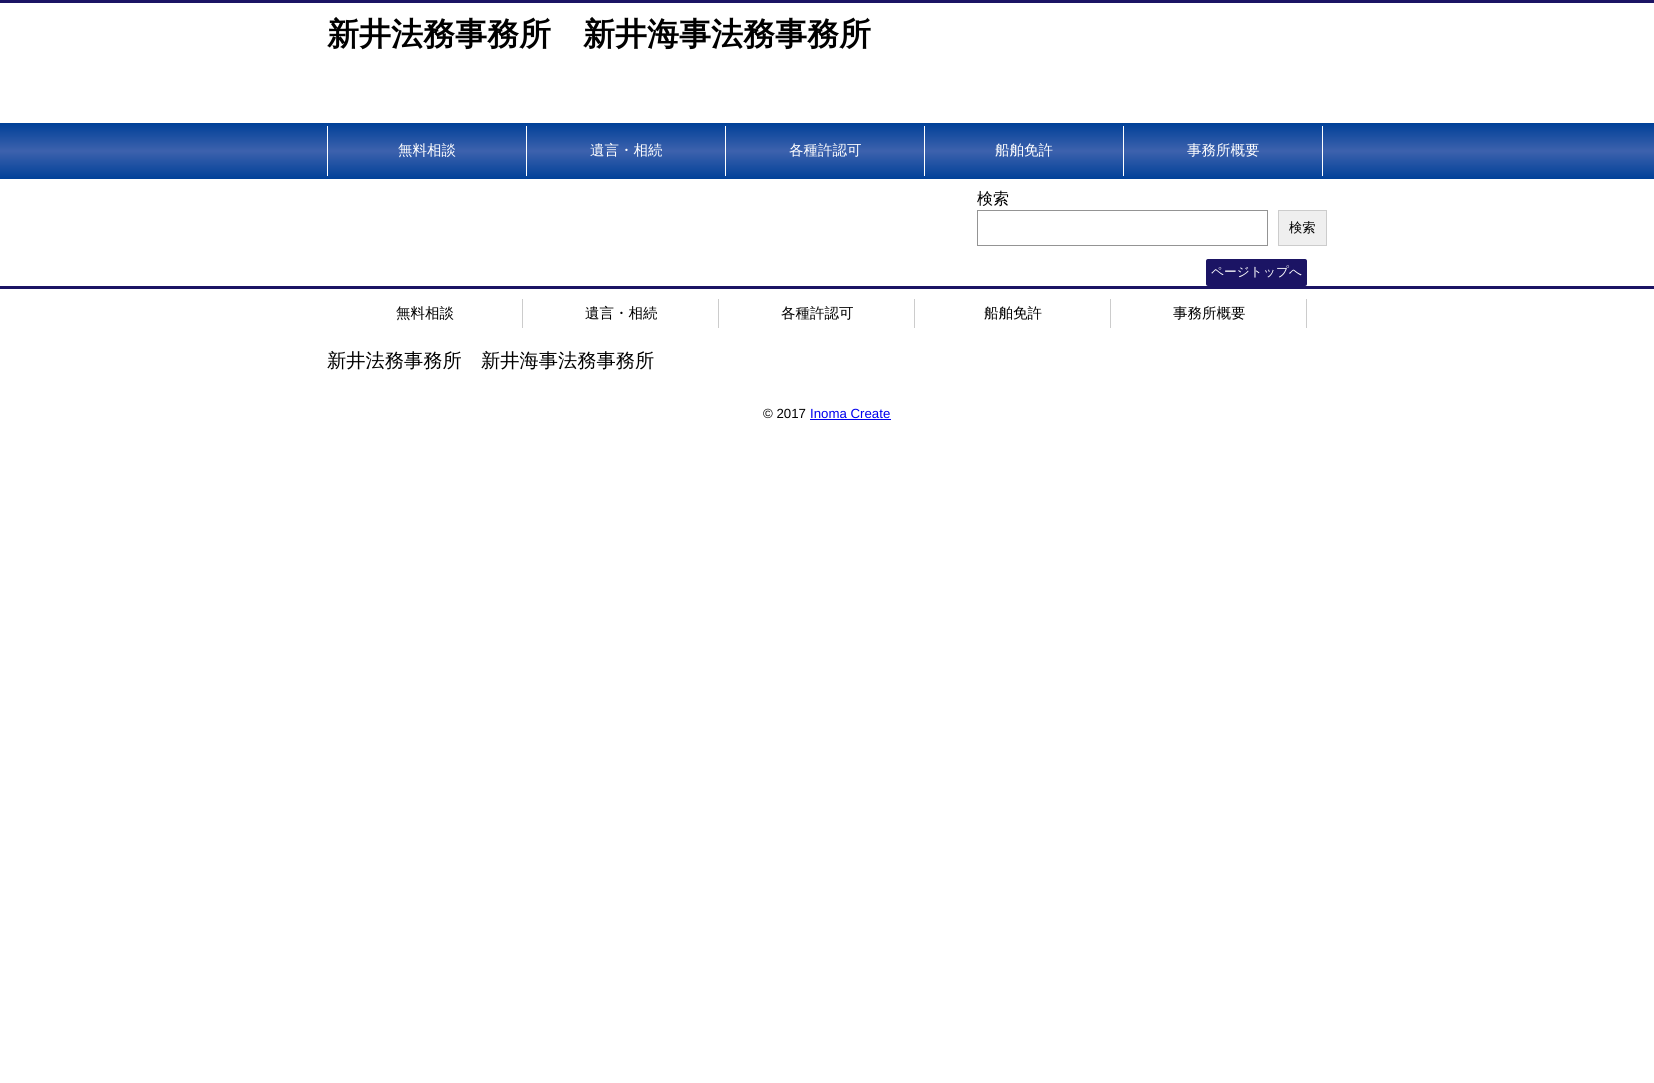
#include <cairo.h>
#include <math.h>
#include <stddef.h>

static cairo_t *c;
static void C(unsigned color){cairo_set_source_rgb(c, (color >> 16) / 255.0, (color >> 8 & 255) / 255.0, (color & 255) / 255.0);}
static void F(const char *family, double size, int italic, int bold){cairo_select_font_face(c, family, italic ? CAIRO_FONT_SLANT_ITALIC : CAIRO_FONT_SLANT_NORMAL,bold ? CAIRO_FONT_WEIGHT_BOLD : CAIRO_FONT_WEIGHT_NORMAL);cairo_set_font_size(c, size);}
static void T(double x, double y, const char *s){cairo_move_to(c, x, y);cairo_show_text(c, s);}
static void R(double x, double y, double w, double h){cairo_rectangle(c, x, y, w, h);cairo_fill(c);}
static void Q(double x, double y, double w, double h, double r){cairo_new_sub_path(c);cairo_arc(c, x + w - r, y + h - r, r, 0, M_PI / 2);cairo_arc(c, x + r, y + h - r, r, M_PI / 2, M_PI);cairo_arc(c, x + r, y + r, r, M_PI, 1.5 * M_PI);cairo_arc(c, x + w - r, y + r, r, 1.5 * M_PI, 2 * M_PI);cairo_close_path(c);}
int main(void) {
cairo_surface_t *surface = cairo_image_surface_create(CAIRO_FORMAT_RGB24, 1654, 1083);
c = cairo_create(surface);
cairo_font_options_t *options = cairo_font_options_create();
cairo_font_options_set_hint_metrics(options, CAIRO_HINT_METRICS_OFF);
cairo_font_options_set_hint_style(options, CAIRO_HINT_STYLE_NONE);
cairo_set_font_options(c, options);
cairo_set_miter_limit(c, 4);
cairo_pattern_t *gradient;
C(0xffffff);
cairo_paint(c);
C(0x1b1464);
R(0,0,1654,3);
F("WenQuanYi Zen Hei",32,0,1);
C(0x000000);
T(327,45,"新井法務事務所　新井海事法務事務所");
gradient = cairo_pattern_create_linear(827,123,827,179);
cairo_pattern_add_color_stop_rgba(gradient,0,0,0.251,0.596,1);
cairo_pattern_add_color_stop_rgba(gradient,.5,0.239,0.384,0.678,1);
cairo_pattern_add_color_stop_rgba(gradient,1,0,0.251,0.596,1);
cairo_set_source(c,gradient);
cairo_pattern_destroy(gradient);
R(0,123,1654,56);
C(0xffffff);
R(526,126,1,50);
R(327,126,1,50);
F("WenQuanYi Zen Hei Medium",14.5,0,0);
T(398,155,"無料相談");
R(725,126,1,50);
T(590,155,"遺言・相続");
R(924,126,1,50);
T(789,155,"各種許認可");
R(1123,126,1,50);
T(995,155,"船舶免許");
R(1322,126,1,50);
T(1187,155,"事務所概要");
F("WenQuanYi Zen Hei Medium",16,0,0);
C(0x000000);
T(977,204,"検索");
cairo_rectangle(c,977.5,210.5,290,35);
C(0x949494);
cairo_set_line_width(c,1);
cairo_stroke(c);
C(0xefefef);
cairo_rectangle(c,1278.5,210.5,48,35);
cairo_fill_preserve(c);
C(0xcccccc);
cairo_stroke(c);
F("WenQuanYi Zen Hei Medium",13.25,0,0);
C(0x000000);
T(1289,232,"検索");
C(0x1b1464);
R(0,286,1654,3);
Q(1206,259,101,27,2);
cairo_fill(c);
F("WenQuanYi Zen Hei Medium",12.75,0,0);
C(0xffffff);
T(1211,276,"ページトップへ");
C(0xcccccc);
R(522,299,1,29);
F("WenQuanYi Zen Hei Medium",14.5,0,0);
C(0x000000);
T(396,318,"無料相談");
C(0xcccccc);
R(718,299,1,29);
C(0x000000);
T(585,318,"遺言・相続");
C(0xcccccc);
R(914,299,1,29);
C(0x000000);
T(781,318,"各種許認可");
C(0xcccccc);
R(1110,299,1,29);
C(0x000000);
T(984,318,"船舶免許");
C(0xcccccc);
R(1306,299,1,29);
C(0x000000);
T(1173,318,"事務所概要");
F("WenQuanYi Zen Hei Medium",19.25,0,0);
T(327,367,"新井法務事務所　新井海事法務事務所");
F("Liberation Sans",13.25,0,0);
T(763,418,"© 2017");
C(0x0000ee);
T(810,418,"Inoma Create");
R(810,419,81,1);
cairo_surface_write_to_png(surface, "o.png");
cairo_font_options_destroy(options);
cairo_destroy(c);
cairo_surface_destroy(surface);
return 0;
}
